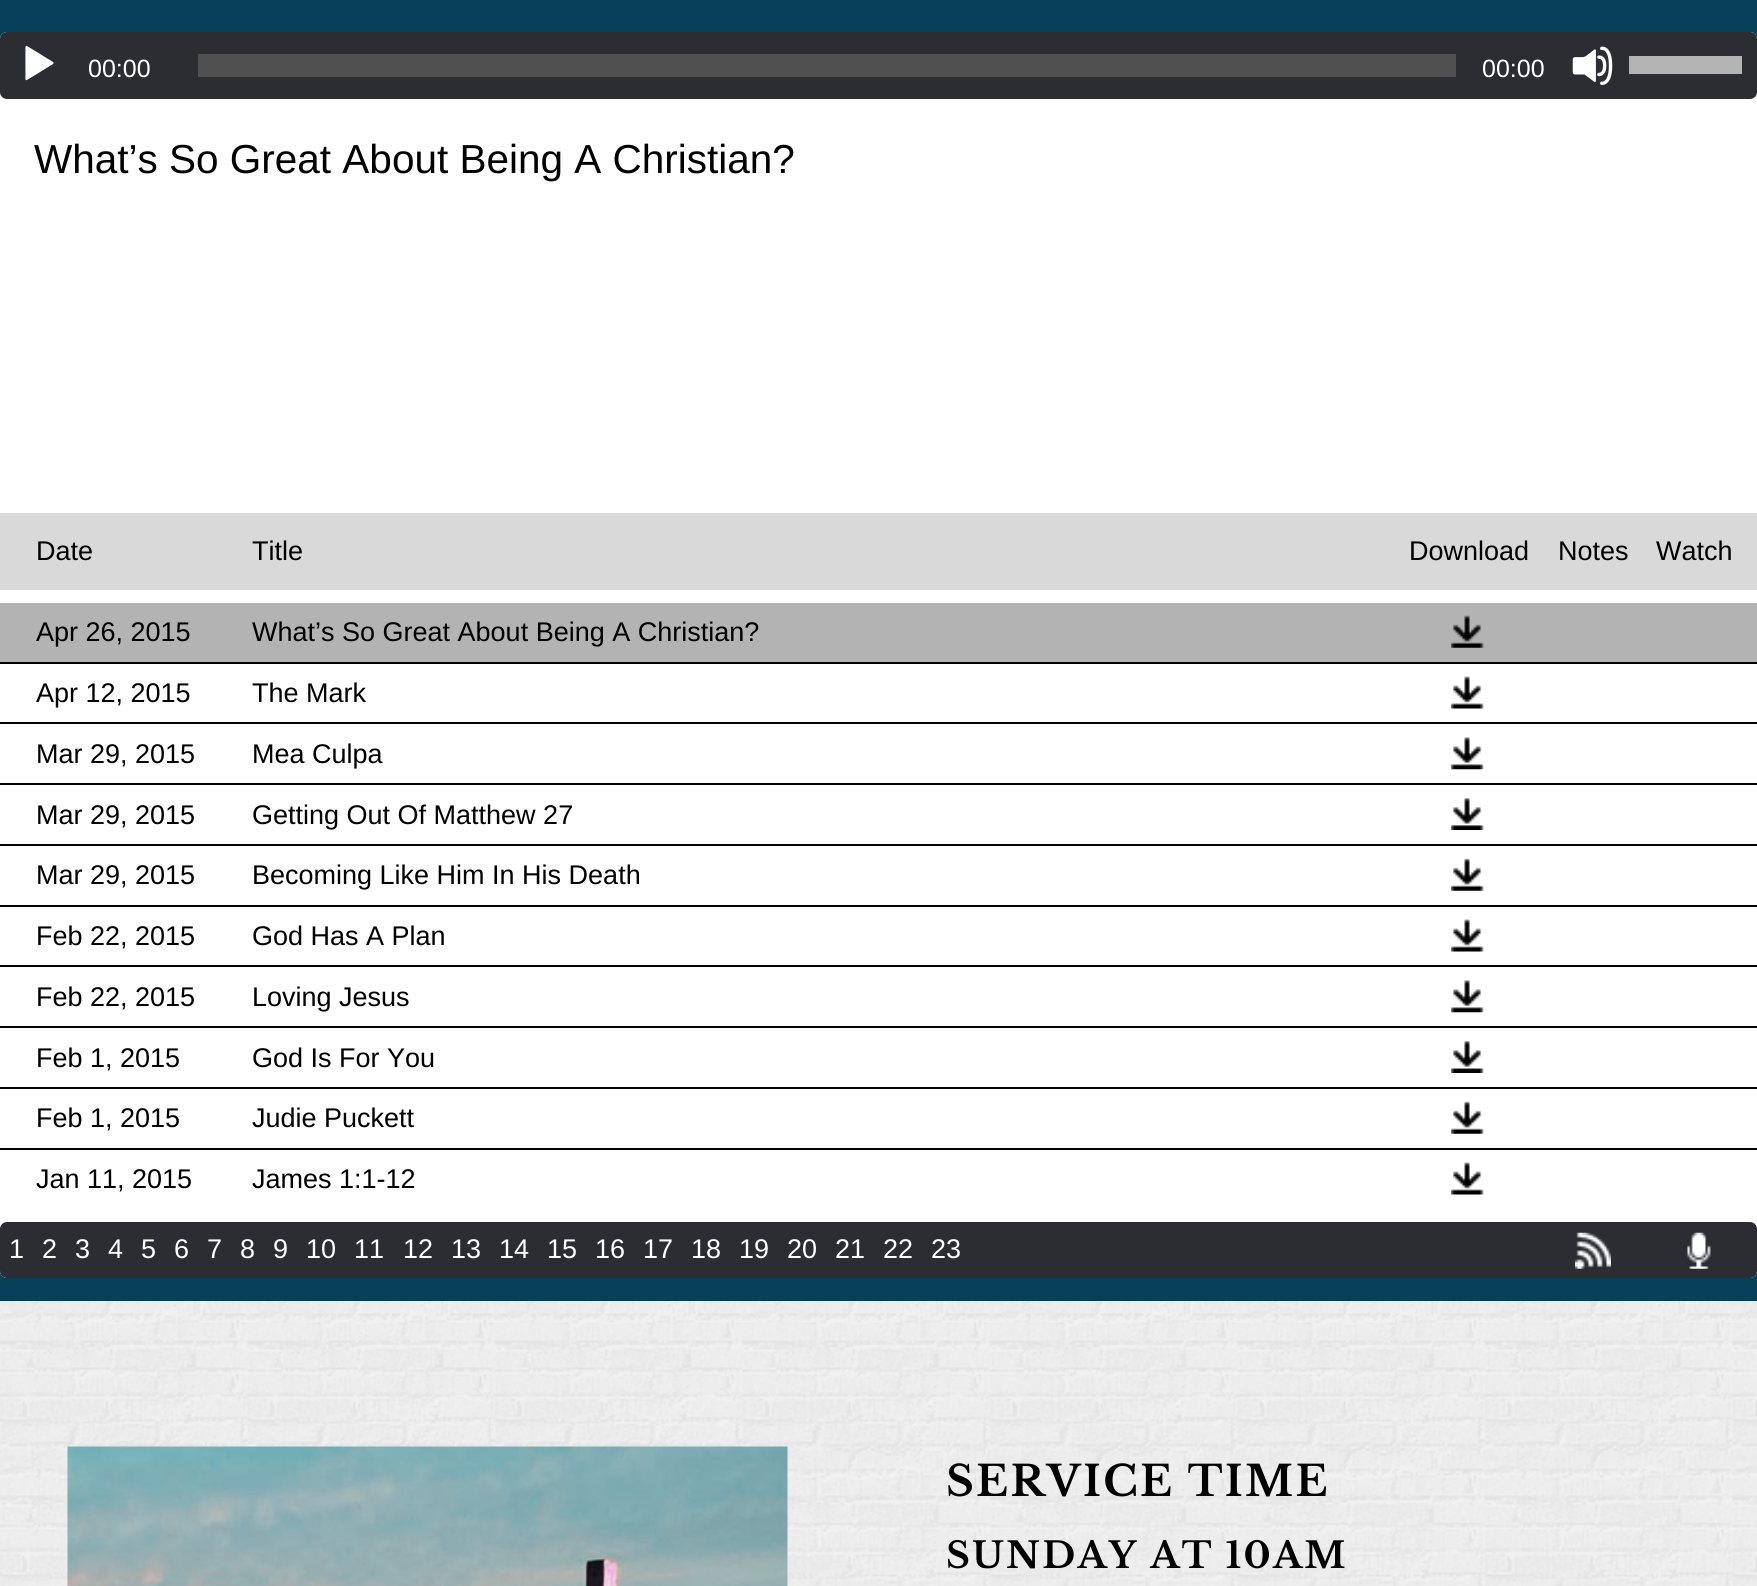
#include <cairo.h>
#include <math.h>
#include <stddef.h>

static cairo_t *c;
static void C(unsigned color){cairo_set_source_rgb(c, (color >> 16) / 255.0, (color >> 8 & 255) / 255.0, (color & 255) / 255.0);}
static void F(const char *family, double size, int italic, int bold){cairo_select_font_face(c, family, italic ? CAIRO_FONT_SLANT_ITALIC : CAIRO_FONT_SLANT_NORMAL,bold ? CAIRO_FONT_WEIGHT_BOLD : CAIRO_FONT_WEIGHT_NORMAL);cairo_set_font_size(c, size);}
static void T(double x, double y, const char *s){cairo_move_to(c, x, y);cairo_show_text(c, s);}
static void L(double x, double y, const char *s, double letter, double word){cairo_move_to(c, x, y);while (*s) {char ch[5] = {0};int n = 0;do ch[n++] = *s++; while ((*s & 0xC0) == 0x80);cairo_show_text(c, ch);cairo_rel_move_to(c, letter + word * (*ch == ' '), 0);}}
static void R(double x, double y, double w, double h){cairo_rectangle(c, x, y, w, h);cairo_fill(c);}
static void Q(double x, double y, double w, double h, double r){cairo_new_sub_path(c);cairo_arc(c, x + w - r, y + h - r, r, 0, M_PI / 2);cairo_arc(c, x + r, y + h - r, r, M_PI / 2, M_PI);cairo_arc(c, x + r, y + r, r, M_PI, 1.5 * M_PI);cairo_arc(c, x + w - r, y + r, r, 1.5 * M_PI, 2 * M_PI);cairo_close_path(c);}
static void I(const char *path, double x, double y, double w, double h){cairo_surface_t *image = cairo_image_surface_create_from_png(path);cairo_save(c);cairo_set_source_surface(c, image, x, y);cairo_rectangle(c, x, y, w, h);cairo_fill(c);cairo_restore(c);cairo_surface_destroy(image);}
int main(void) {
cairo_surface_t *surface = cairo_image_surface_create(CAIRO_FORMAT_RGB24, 1757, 1586);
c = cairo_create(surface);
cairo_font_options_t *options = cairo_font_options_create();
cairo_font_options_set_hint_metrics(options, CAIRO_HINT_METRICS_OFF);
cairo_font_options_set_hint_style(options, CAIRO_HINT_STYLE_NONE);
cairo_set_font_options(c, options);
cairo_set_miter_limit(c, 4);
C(0x074058);
cairo_paint(c);
C(0xffffff);
Q(0,32,1757,1246,7);
cairo_fill(c);
C(0x2c2d33);
Q(0,32,1757,67,7);
cairo_fill(c);
I("1.png",25,45,29,36);
F("Liberation Sans",25,0,0);
C(0xffffff);
T(88,77,"00:00");
C(0x505050);
R(198,54,1258,23);
C(0xffffff);
T(1482,77,"00:00");
I("2.png",1572,46,41,39);
C(0xb4b4b4);
R(1629,56,113,18);
F("Liberation Sans",40.5,0,0);
C(0x000000);
T(34,173,"What’s So Great About Being A Christian?");
C(0xd9d9d9);
R(0,513,1757,77);
F("Liberation Sans",27,0,0);
C(0x000000);
T(36,560,"Date");
T(252,560,"Title");
T(1409,560,"Download");
T(1558,560,"Notes");
T(1656,560,"Watch");
C(0xb3b3b3);
R(0,603,1757,59);
C(0x000000);
T(36,641,"Apr 26, 2015");
T(252,641,"What’s So Great About Being A Christian?");
I("3.png",1451,615,33,33);
R(0,662,1757,2);
T(36,702,"Apr 12, 2015");
T(252,702,"The Mark");
I("4.png",1451,676,33,33);
R(0,722,1757,2);
T(36,763,"Mar 29, 2015");
T(252,763,"Mea Culpa");
I("5.png",1451,737,33,33);
R(0,783,1757,2);
T(36,824,"Mar 29, 2015");
T(252,824,"Getting Out Of Matthew 27");
I("6.png",1451,798,33,32);
R(0,844,1757,2);
T(36,884,"Mar 29, 2015");
T(252,884,"Becoming Like Him In His Death");
I("7.png",1451,858,33,33);
R(0,905,1757,2);
T(36,945,"Feb 22, 2015");
T(252,945,"God Has A Plan");
I("4.png",1451,919,33,33);
R(0,965,1757,2);
T(36,1006,"Feb 22, 2015");
T(252,1006,"Loving Jesus");
I("5.png",1451,980,33,33);
R(0,1026,1757,2);
T(36,1067,"Feb 1, 2015");
T(252,1067,"God Is For You");
I("8.png",1451,1041,33,32);
R(0,1087,1757,2);
T(36,1127,"Feb 1, 2015");
T(252,1127,"Judie Puckett");
I("7.png",1451,1101,33,33);
R(0,1148,1757,2);
T(36,1188,"Jan 11, 2015");
T(252,1188,"James 1:1-12");
I("4.png",1451,1162,33,33);
C(0x2c2d33);
Q(0,1222,1757,56,7);
cairo_fill(c);
C(0xffffff);
T(9,1258,"1");
T(42,1258,"2");
T(75,1258,"3");
T(108,1258,"4");
T(141,1258,"5");
T(174,1258,"6");
T(207,1258,"7");
T(240,1258,"8");
T(273,1258,"9");
T(306,1258,"10");
T(354,1258,"11");
T(403,1258,"12");
T(451,1258,"13");
T(499,1258,"14");
T(547,1258,"15");
T(595,1258,"16");
T(643,1258,"17");
T(691,1258,"18");
T(739,1258,"19");
T(787,1258,"20");
T(835,1258,"21");
T(883,1258,"22");
T(931,1258,"23");
I("9.png",1575,1232,36,37);
I("10.png",1687,1232,24,37);
R(0,1301,1757,285);
I("11.png",0,1300,1757,286);
I("12.png",67,1446,721,140);
F("Libre Baskerville",42,0,1);
C(0x000000);
L(946,1496,"SERVICE TIME",2.25,0);
F("Libre Baskerville",36,0,1);
L(946,1568,"SUNDAY AT 10AM",2.25,0);
cairo_surface_write_to_png(surface, "o.png");
cairo_font_options_destroy(options);
cairo_destroy(c);
cairo_surface_destroy(surface);
return 0;
}
